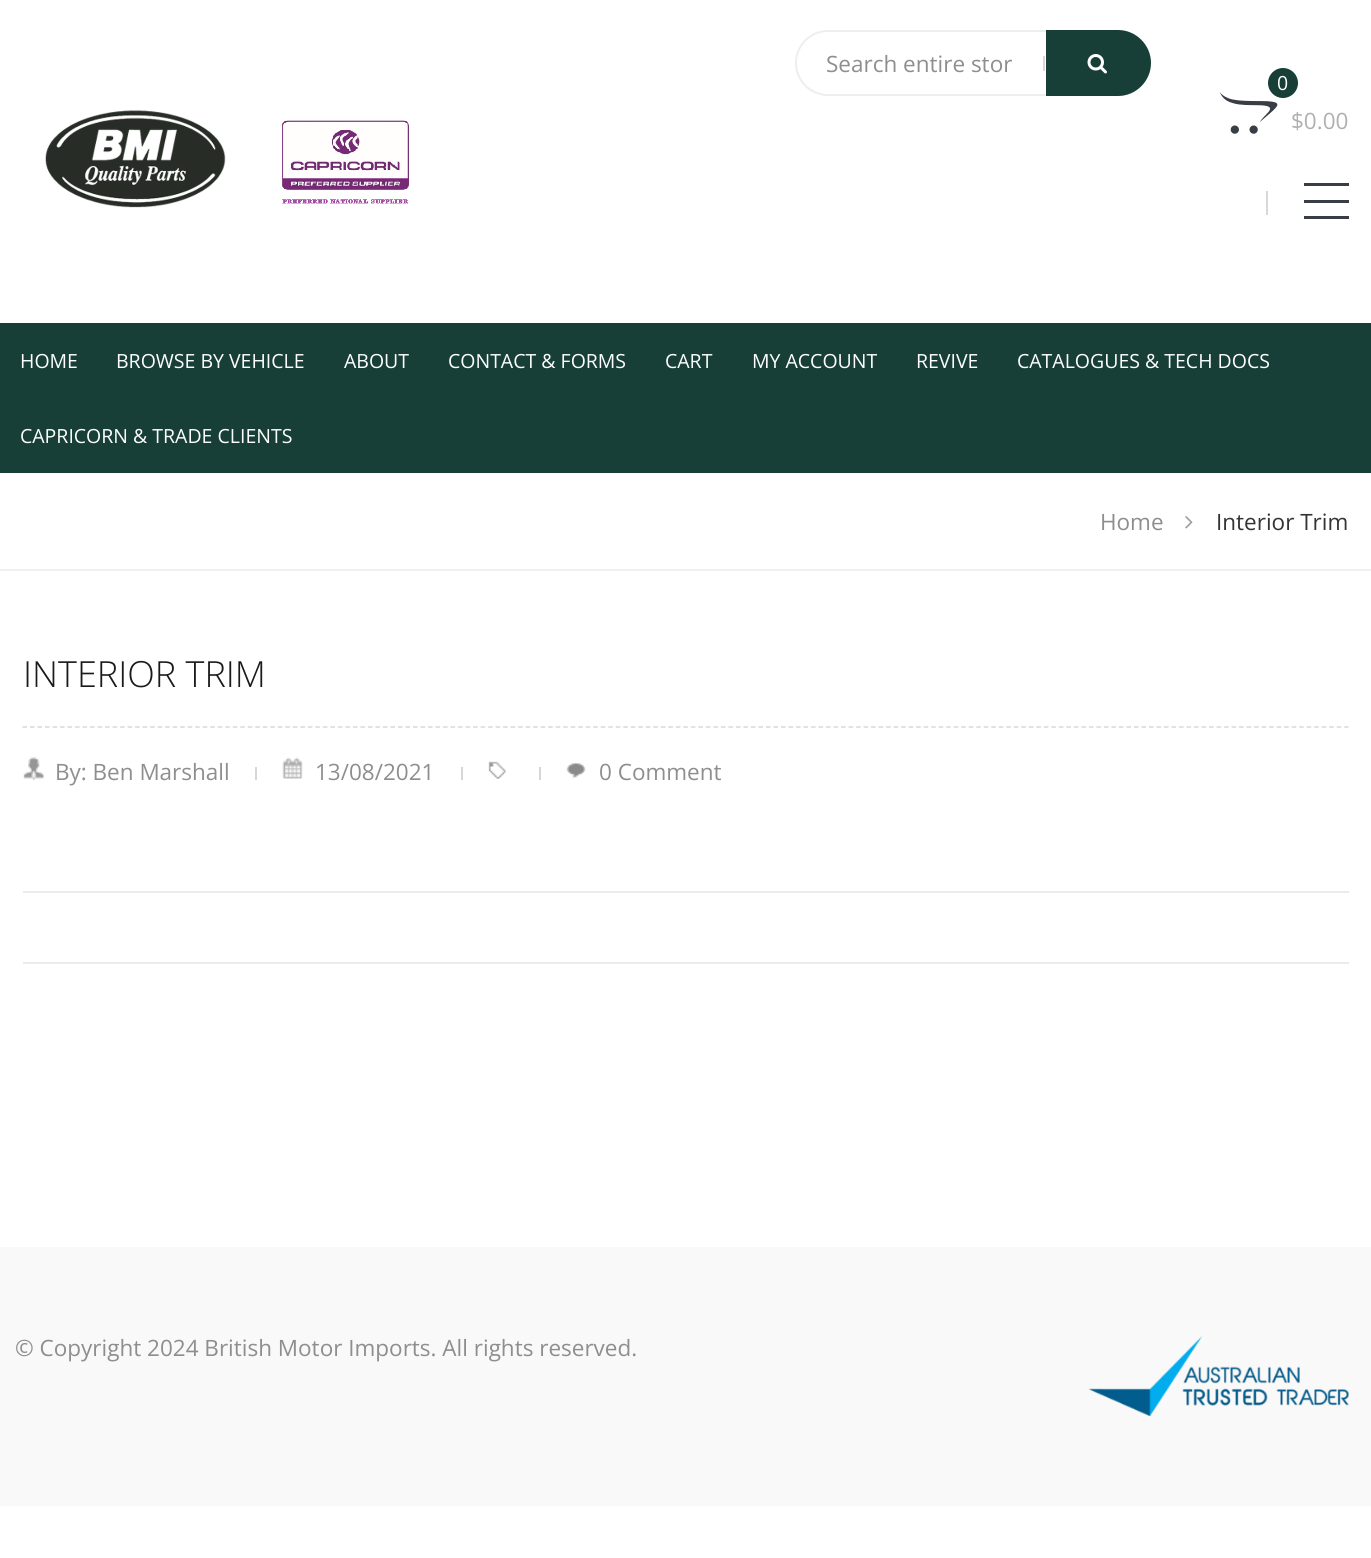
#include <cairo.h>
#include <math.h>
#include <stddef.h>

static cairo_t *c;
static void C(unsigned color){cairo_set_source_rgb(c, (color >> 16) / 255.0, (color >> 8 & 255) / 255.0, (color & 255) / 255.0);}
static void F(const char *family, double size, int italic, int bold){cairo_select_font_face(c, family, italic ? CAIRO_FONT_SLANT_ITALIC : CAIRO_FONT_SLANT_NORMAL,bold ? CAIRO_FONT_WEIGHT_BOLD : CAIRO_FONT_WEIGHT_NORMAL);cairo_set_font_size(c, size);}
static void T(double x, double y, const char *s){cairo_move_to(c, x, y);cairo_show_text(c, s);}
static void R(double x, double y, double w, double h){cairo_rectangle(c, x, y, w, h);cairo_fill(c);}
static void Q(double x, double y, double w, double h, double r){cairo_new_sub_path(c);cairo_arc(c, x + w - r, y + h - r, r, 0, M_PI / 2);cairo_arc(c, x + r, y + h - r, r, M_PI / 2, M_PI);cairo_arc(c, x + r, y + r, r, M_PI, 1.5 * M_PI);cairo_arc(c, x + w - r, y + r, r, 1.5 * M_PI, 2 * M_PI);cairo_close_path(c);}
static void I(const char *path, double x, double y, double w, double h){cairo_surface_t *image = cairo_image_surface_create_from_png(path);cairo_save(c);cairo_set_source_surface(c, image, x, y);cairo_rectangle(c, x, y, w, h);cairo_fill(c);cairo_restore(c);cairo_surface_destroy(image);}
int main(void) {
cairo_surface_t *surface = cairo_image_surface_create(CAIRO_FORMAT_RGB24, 1371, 1558);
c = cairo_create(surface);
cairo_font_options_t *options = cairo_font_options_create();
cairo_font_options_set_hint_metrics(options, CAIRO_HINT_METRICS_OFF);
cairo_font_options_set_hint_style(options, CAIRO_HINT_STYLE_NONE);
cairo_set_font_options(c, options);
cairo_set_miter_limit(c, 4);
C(0xffffff);
cairo_paint(c);
Q(796,31,354,64,32);
C(0xeeeeee);
cairo_stroke(c);
F("Open Sans",22.5,0,0);
C(0x8e8e8e);
T(826,72,"Search entire stor");
C(0xd8d8d8);
R(1043,56,2,15);
C(0x173f37);
cairo_new_path(c);
cairo_move_to(c,1046,30);
cairo_line_to(c,1118,30);
cairo_curve_to(c,1136,30,1151,45,1151,63);
cairo_curve_to(c,1151,81,1136,96,1118,96);
cairo_line_to(c,1046,96);
cairo_close_path(c);
cairo_fill(c);
I("1.png",1087,54,20,20);
I("2.png",1219,92,59,42);
cairo_arc(c,1283,83,15,0,2 * M_PI);
cairo_fill(c);
F("Open Sans",19.5,0,0);
C(0xffffff);
T(1277,90,"0");
F("Open Sans",22.5,0,0);
C(0xb0b0b0);
T(1291,129,"$0.00");
C(0xd8d8d8);
R(1266,191,2,24);
C(0x393d45);
R(1304,183,45,3);
R(1304,200,45,3);
R(1304,216,45,3);
I("3.png",45,110,364,98);
C(0x173f37);
R(0,323,1371,150);
F("Open Sans",19.5,0,0);
C(0xffffff);
T(20,368,"HOME");
T(116,368,"BROWSE BY VEHICLE");
T(344,368,"ABOUT");
T(448,368,"CONTACT & FORMS");
T(665,368,"CART");
T(752,368,"MY ACCOUNT");
T(916,368,"REVIVE");
T(1017,368,"CATALOGUES & TECH DOCS");
T(20,443,"CAPRICORN & TRADE CLIENTS");
C(0xf0f0f0);
R(0,569,1371,2);
F("Open Sans",22.5,0,0);
C(0x8e8e8e);
T(1100,530,"Home");
I("4.png",1185,516,8,13);
C(0x343434);
T(1216,530,"Interior Trim");
cairo_new_path(c);
cairo_move_to(c,22.5,727);
cairo_line_to(c,1348.5,727);
C(0xd8d8d8);
cairo_set_line_width(c,1.5);
cairo_set_dash(c,(double[]){4.5,3.01},2,0);
cairo_stroke(c);
F("Open Sans Light",36,0,0);
C(0x1a1a1a);
T(23,687,"INTERIOR TRIM");
I("5.png",23,757,21,23);
F("Open Sans",22.5,0,0);
C(0x8e8e8e);
T(55,780,"By: Ben Marshall");
C(0xd6d6d6);
R(255,767,2,13);
I("6.png",282,757,21,22);
C(0x8e8e8e);
T(315,780,"13/08/2021");
C(0xd6d6d6);
R(461,767,2,13);
I("7.png",488,761,18,18);
R(539,767,2,13);
I("8.png",566,763,20,16);
C(0x8e8e8e);
T(599,780,"0 Comment");
C(0xebebeb);
R(23,891,1326,2);
R(23,962,1326,2);
C(0xf9f9f9);
R(0,1247,1371,259);
C(0x8e8e8e);
T(15,1356,"© Copyright 2024 British Motor Imports. All rights reserved.");
I("9.png",1089,1336,260,80);
cairo_surface_write_to_png(surface, "o.png");
cairo_font_options_destroy(options);
cairo_destroy(c);
cairo_surface_destroy(surface);
return 0;
}
